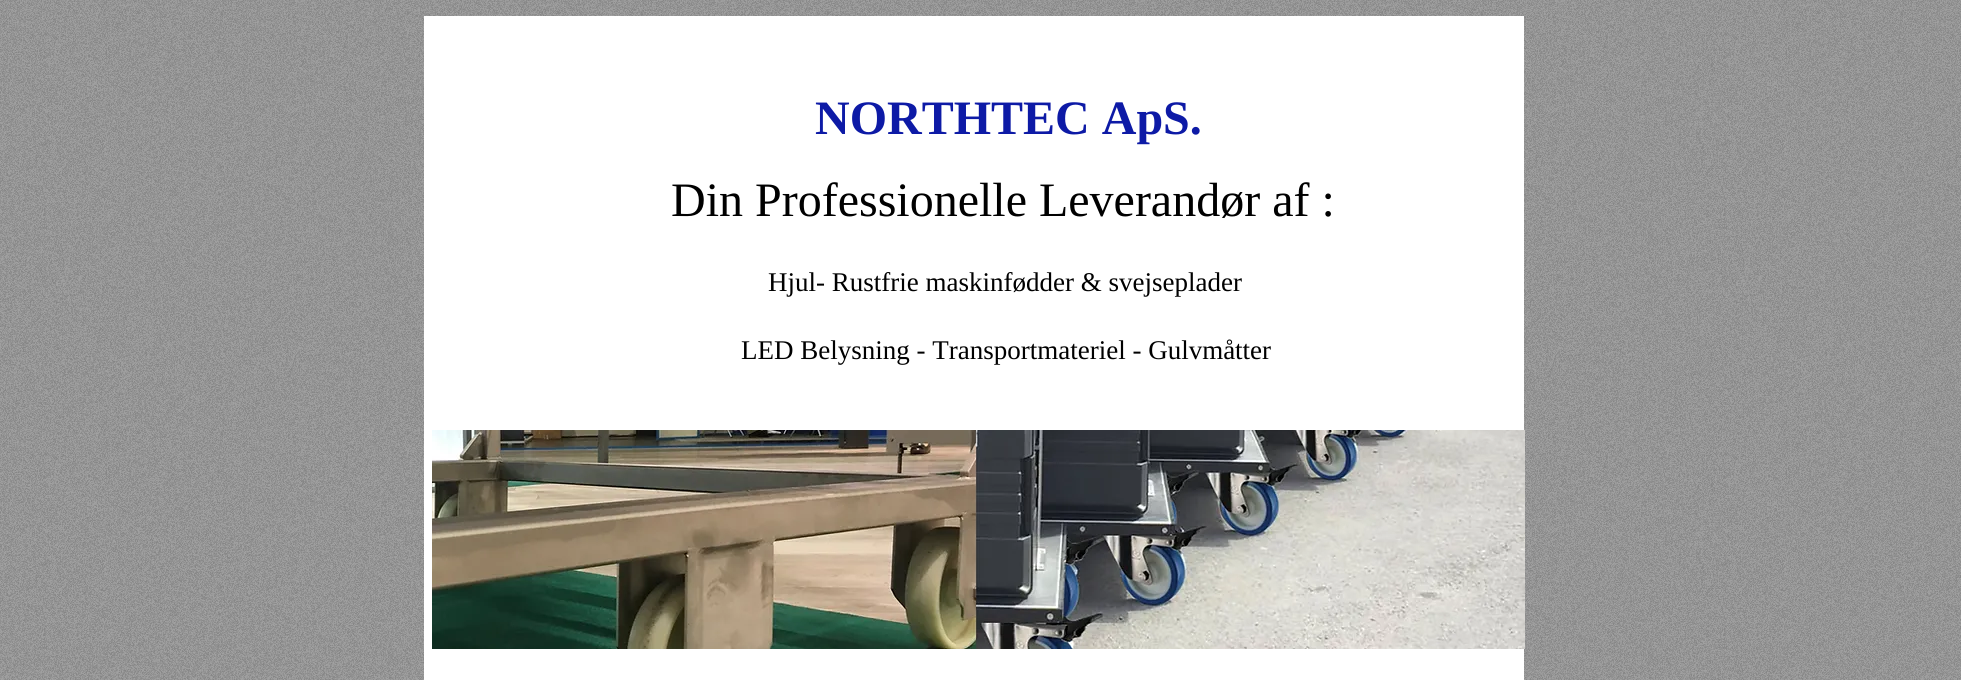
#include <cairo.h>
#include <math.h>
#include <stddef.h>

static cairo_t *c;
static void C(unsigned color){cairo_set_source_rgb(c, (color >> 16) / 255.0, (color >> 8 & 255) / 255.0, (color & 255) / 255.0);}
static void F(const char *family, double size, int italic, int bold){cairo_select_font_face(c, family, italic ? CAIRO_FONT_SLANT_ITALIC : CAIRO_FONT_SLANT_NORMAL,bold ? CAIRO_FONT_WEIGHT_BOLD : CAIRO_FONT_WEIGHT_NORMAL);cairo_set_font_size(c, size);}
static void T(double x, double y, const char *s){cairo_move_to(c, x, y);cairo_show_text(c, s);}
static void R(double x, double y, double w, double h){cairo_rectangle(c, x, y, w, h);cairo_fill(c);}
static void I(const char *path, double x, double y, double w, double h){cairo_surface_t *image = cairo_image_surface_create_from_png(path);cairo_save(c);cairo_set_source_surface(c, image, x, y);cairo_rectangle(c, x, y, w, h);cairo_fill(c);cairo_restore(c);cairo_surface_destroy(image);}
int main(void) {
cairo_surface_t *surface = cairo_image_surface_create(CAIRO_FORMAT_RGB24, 1961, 680);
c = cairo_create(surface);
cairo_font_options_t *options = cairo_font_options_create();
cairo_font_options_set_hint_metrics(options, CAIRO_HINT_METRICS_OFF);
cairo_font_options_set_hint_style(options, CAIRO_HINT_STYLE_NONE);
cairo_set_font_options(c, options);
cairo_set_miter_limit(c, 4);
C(0xffffff);
cairo_paint(c);
I("1.png",0,0,1961,680);
C(0xffffff);
R(424,16,1100,664);
F("Liberation Serif",48,0,1);
C(0x0d1aa6);
T(815,134,"NORTHTEC ApS.");
F("Liberation Serif",48,0,0);
C(0x000000);
T(671,216,"Din Professionelle Leverandør af :");
F("Liberation Serif",27,0,0);
T(768,291,"Hjul- Rustfrie maskinfødder & svejseplader");
T(741,359,"LED Belysning - Transportmateriel - Gulvmåtter");
I("2.png",432,430,1093,219);
cairo_surface_write_to_png(surface, "o.png");
cairo_font_options_destroy(options);
cairo_destroy(c);
cairo_surface_destroy(surface);
return 0;
}
